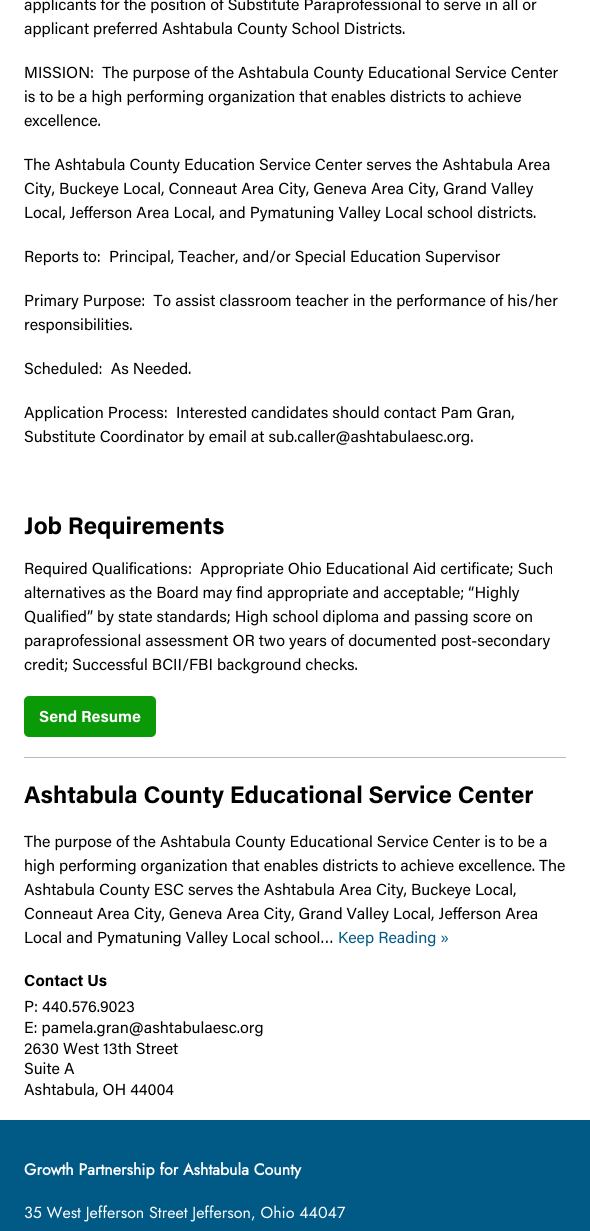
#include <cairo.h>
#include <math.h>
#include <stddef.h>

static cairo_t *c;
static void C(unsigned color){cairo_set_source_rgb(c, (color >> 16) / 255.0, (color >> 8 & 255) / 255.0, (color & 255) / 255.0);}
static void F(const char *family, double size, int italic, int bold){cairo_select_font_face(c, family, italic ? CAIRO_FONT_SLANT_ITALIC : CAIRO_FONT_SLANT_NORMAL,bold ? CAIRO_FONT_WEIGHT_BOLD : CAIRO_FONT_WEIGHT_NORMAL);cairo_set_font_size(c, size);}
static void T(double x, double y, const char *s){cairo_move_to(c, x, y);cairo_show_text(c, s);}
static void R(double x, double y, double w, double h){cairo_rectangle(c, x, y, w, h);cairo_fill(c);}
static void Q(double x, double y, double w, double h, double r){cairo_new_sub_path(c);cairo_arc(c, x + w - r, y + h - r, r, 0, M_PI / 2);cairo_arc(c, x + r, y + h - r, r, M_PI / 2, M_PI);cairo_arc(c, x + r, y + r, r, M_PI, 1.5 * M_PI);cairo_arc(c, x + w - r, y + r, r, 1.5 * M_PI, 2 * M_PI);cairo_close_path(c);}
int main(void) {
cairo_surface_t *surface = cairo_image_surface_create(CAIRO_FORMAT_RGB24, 590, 1231);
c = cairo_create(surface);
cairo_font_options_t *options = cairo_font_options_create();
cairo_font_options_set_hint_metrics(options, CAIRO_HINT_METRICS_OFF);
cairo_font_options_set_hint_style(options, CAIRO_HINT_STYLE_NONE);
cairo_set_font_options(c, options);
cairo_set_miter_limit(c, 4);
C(0xffffff);
cairo_paint(c);
C(0xbababa);
R(24,757,542,1);
F("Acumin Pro",16,0,0);
C(0x000000);
T(24,10,"applicants for the position of Substitute Paraprofessional to serve in all or");
T(24,34,"applicant preferred Ashtabula County School Districts.");
T(24,78,"MISSION:  The purpose of the Ashtabula County Educational Service Center");
T(24,102,"is to be a high performing organization that enables districts to achieve");
T(24,126,"excellence.");
T(24,170,"The Ashtabula County Education Service Center serves the Ashtabula Area");
T(24,194,"City, Buckeye Local, Conneaut Area City, Geneva Area City, Grand Valley");
T(24,218,"Local, Jefferson Area Local, and Pymatuning Valley Local school districts.");
T(24,262,"Reports to:  Principal, Teacher, and/or Special Education Supervisor");
T(24,306,"Primary Purpose:  To assist classroom teacher in the performance of his/her");
T(24,330,"responsibilities.");
T(24,374,"Scheduled:  As Needed.");
T(24,418,"Application Process:  Interested candidates should contact Pam Gran,");
T(24,442,"Substitute Coordinator by email at sub.caller@ashtabulaesc.org.");
F("Acumin Pro",24,0,1);
T(24,534,"Job Requirements");
F("Acumin Pro",16,0,0);
T(24,574,"Required Qualifications:  Appropriate Ohio Educational Aid certificate; Such");
T(24,598,"alternatives as the Board may find appropriate and acceptable; “Highly");
T(24,622,"Qualified” by state standards; High school diploma and passing score on");
T(24,646,"paraprofessional assessment OR two years of documented post-secondary");
T(24,670,"credit; Successful BCII/FBI background checks.");
C(0x0a9907);
Q(24,696,132,41,5);
cairo_fill(c);
F("Acumin Pro",16,0,1);
C(0xffffff);
T(39,722,"Send Resume");
F("Acumin Pro",24,0,1);
C(0x000000);
T(24,803,"Ashtabula County Educational Service Center");
F("Acumin Pro",16,0,0);
T(24,847,"The purpose of the Ashtabula County Educational Service Center is to be a");
T(24,871,"high performing organization that enables districts to achieve excellence. The");
T(24,895,"Ashtabula County ESC serves the Ashtabula Area City, Buckeye Local,");
T(24,919,"Conneaut Area City, Geneva Area City, Grand Valley Local, Jefferson Area");
T(24,943,"Local and Pymatuning Valley Local school…");
C(0x015985);
T(338,943,"Keep Reading »");
F("Acumin Pro",16,0,1);
C(0x000000);
T(24,986,"Contact Us");
F("Acumin Pro",16,0,0);
T(24,1012,"P: 440.576.9023");
T(24,1033,"E: pamela.gran@ashtabulaesc.org");
T(24,1054,"2630 West 13th Street");
T(24,1074,"Suite A");
T(24,1095,"Ashtabula, OH 44004");
C(0x015985);
R(0,1120,590,111);
F("Jost",16,0,1);
C(0xffffff);
T(24,1175,"Growth Partnership for Ashtabula County");
F("Jost",16,0,0);
T(24,1218,"35 West Jefferson Street Jefferson, Ohio 44047");
cairo_surface_write_to_png(surface, "o.png");
cairo_font_options_destroy(options);
cairo_destroy(c);
cairo_surface_destroy(surface);
return 0;
}
